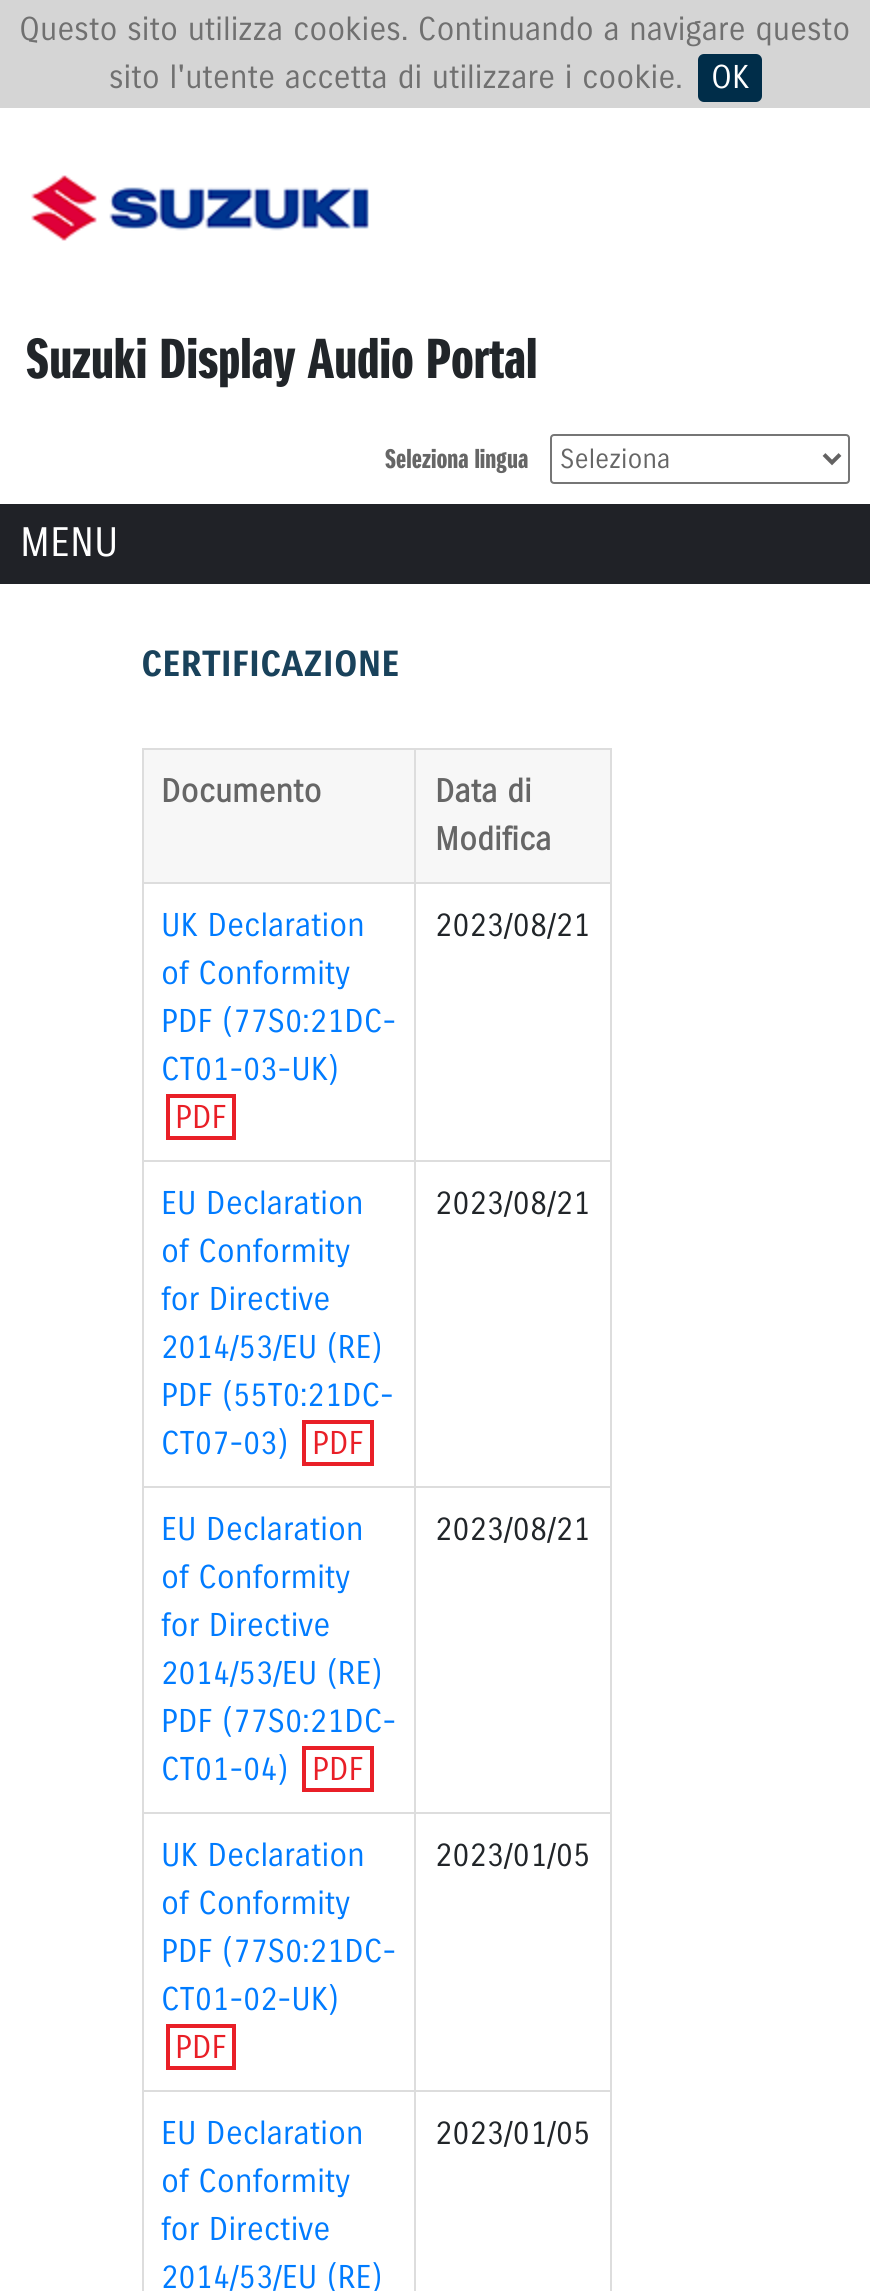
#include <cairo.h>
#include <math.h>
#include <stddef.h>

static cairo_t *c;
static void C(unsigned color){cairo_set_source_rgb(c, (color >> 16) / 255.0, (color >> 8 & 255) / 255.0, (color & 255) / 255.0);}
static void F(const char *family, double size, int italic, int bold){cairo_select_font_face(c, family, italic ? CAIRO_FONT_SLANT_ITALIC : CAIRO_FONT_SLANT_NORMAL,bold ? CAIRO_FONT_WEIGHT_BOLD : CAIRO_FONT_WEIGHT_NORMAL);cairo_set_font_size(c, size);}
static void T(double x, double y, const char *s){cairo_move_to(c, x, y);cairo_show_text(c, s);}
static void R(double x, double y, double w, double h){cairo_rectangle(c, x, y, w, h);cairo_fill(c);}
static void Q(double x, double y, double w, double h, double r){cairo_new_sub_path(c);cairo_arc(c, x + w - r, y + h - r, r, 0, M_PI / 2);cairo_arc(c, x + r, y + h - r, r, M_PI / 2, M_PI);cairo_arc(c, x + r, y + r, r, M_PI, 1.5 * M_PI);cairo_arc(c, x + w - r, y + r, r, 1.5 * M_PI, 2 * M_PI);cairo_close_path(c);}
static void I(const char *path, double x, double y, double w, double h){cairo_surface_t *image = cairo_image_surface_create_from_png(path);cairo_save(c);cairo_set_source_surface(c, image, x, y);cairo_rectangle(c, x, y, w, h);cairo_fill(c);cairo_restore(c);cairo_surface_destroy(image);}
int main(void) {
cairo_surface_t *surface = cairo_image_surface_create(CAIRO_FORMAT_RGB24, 870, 2291);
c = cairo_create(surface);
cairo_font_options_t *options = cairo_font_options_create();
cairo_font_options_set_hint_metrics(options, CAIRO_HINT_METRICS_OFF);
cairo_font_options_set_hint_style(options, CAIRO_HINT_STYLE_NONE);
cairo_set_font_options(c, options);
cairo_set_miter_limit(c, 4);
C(0xffffff);
cairo_paint(c);
C(0xd5d5d5);
R(0,0,870,108);
F("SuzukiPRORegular",32,0,0);
C(0x707070);
T(19,40,"Questo sito utilizza cookies. Continuando a navigare questo");
T(109,88,"sito l'utente accetta di utilizzare i cookie.");
C(0x002d49);
Q(698,54,64,48,6);
cairo_fill(c);
C(0xffffff);
T(711,88,"OK");
I("1.png",31,175,338,66);
F("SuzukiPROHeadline",54.5,0,1);
C(0x212529);
T(26,378,"Suzuki Display Audio Portal");
F("SuzukiPROHeadline",26,0,1);
C(0x666666);
T(385,468,"Seleziona lingua");
Q(551,435,298,48,3);
C(0x767676);
cairo_stroke(c);
cairo_new_path(c);
cairo_move_to(c,824,454.5);
cairo_line_to(c,832,462.5);
cairo_line_to(c,840,454.5);
C(0x636262);
cairo_set_line_width(c,4);
cairo_stroke(c);
F("SuzukiPRORegular",26.5,0,0);
C(0x666666);
T(560,468,"Seleziona");
C(0x202227);
R(0,504,870,80);
F("SuzukiPRORegular",40,0,0);
C(0xffffff);
T(20,556,"MENU");
F("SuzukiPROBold",35.25,0,1);
C(0x19425b);
T(141,676,"CERTIFICAZIONE");
C(0xdddddd);
R(142,748,2,1543);
C(0xf7f7f7);
R(144,750,270,132);
C(0xdddddd);
R(142,748,470,2);
R(142,882,470,2);
R(142,1160,470,2);
R(142,1486,470,2);
R(142,1812,470,2);
R(142,2090,470,2);
R(414,2090,2,201);
R(414,1812,2,280);
R(414,1486,2,328);
R(414,1160,2,328);
R(414,882,2,280);
R(414,748,2,136);
F("SuzukiPRORegular",32,0,1);
C(0x666666);
T(161,802,"Documento");
C(0xf7f7f7);
R(416,750,194,132);
C(0xdddddd);
R(610,2090,2,201);
R(610,1812,2,280);
R(610,1486,2,328);
R(610,1160,2,328);
R(610,882,2,280);
R(610,748,2,136);
C(0x666666);
T(435,802,"Data di");
T(435,850,"Modifica");
F("SuzukiPRORegular",32,0,0);
C(0x007bff);
T(161,936,"UK Declaration");
T(161,984,"of Conformity");
T(161,1032,"PDF (77S0:21DC-");
T(161,1080,"CT01-03-UK)");
cairo_rectangle(c,168,1096,66,42);
C(0xe91f27);
cairo_stroke(c);
T(175,1128,"PDF");
C(0x212529);
T(435,936,"2023/08/21");
C(0x007bff);
T(161,1214,"EU Declaration");
T(161,1262,"of Conformity");
T(161,1310,"for Directive");
T(161,1358,"2014/53/EU (RE)");
T(161,1406,"PDF (55T0:21DC-");
T(161,1454,"CT07-03)");
cairo_rectangle(c,304,1422,68,42);
C(0xe91f27);
cairo_stroke(c);
T(312,1454,"PDF");
C(0x212529);
T(435,1214,"2023/08/21");
C(0x007bff);
T(161,1540,"EU Declaration");
T(161,1588,"of Conformity");
T(161,1636,"for Directive");
T(161,1684,"2014/53/EU (RE)");
T(161,1732,"PDF (77S0:21DC-");
T(161,1780,"CT01-04)");
cairo_rectangle(c,304,1748,68,42);
C(0xe91f27);
cairo_stroke(c);
T(312,1780,"PDF");
C(0x212529);
T(435,1540,"2023/08/21");
C(0x007bff);
T(161,1866,"UK Declaration");
T(161,1914,"of Conformity");
T(161,1962,"PDF (77S0:21DC-");
T(161,2010,"CT01-02-UK)");
cairo_rectangle(c,168,2026,66,42);
C(0xe91f27);
cairo_stroke(c);
T(175,2058,"PDF");
C(0x212529);
T(435,1866,"2023/01/05");
C(0x007bff);
T(161,2144,"EU Declaration");
T(161,2192,"of Conformity");
T(161,2240,"for Directive");
T(161,2288,"2014/53/EU (RE)");
C(0x212529);
T(435,2144,"2023/01/05");
cairo_surface_write_to_png(surface, "o.png");
cairo_font_options_destroy(options);
cairo_destroy(c);
cairo_surface_destroy(surface);
return 0;
}
